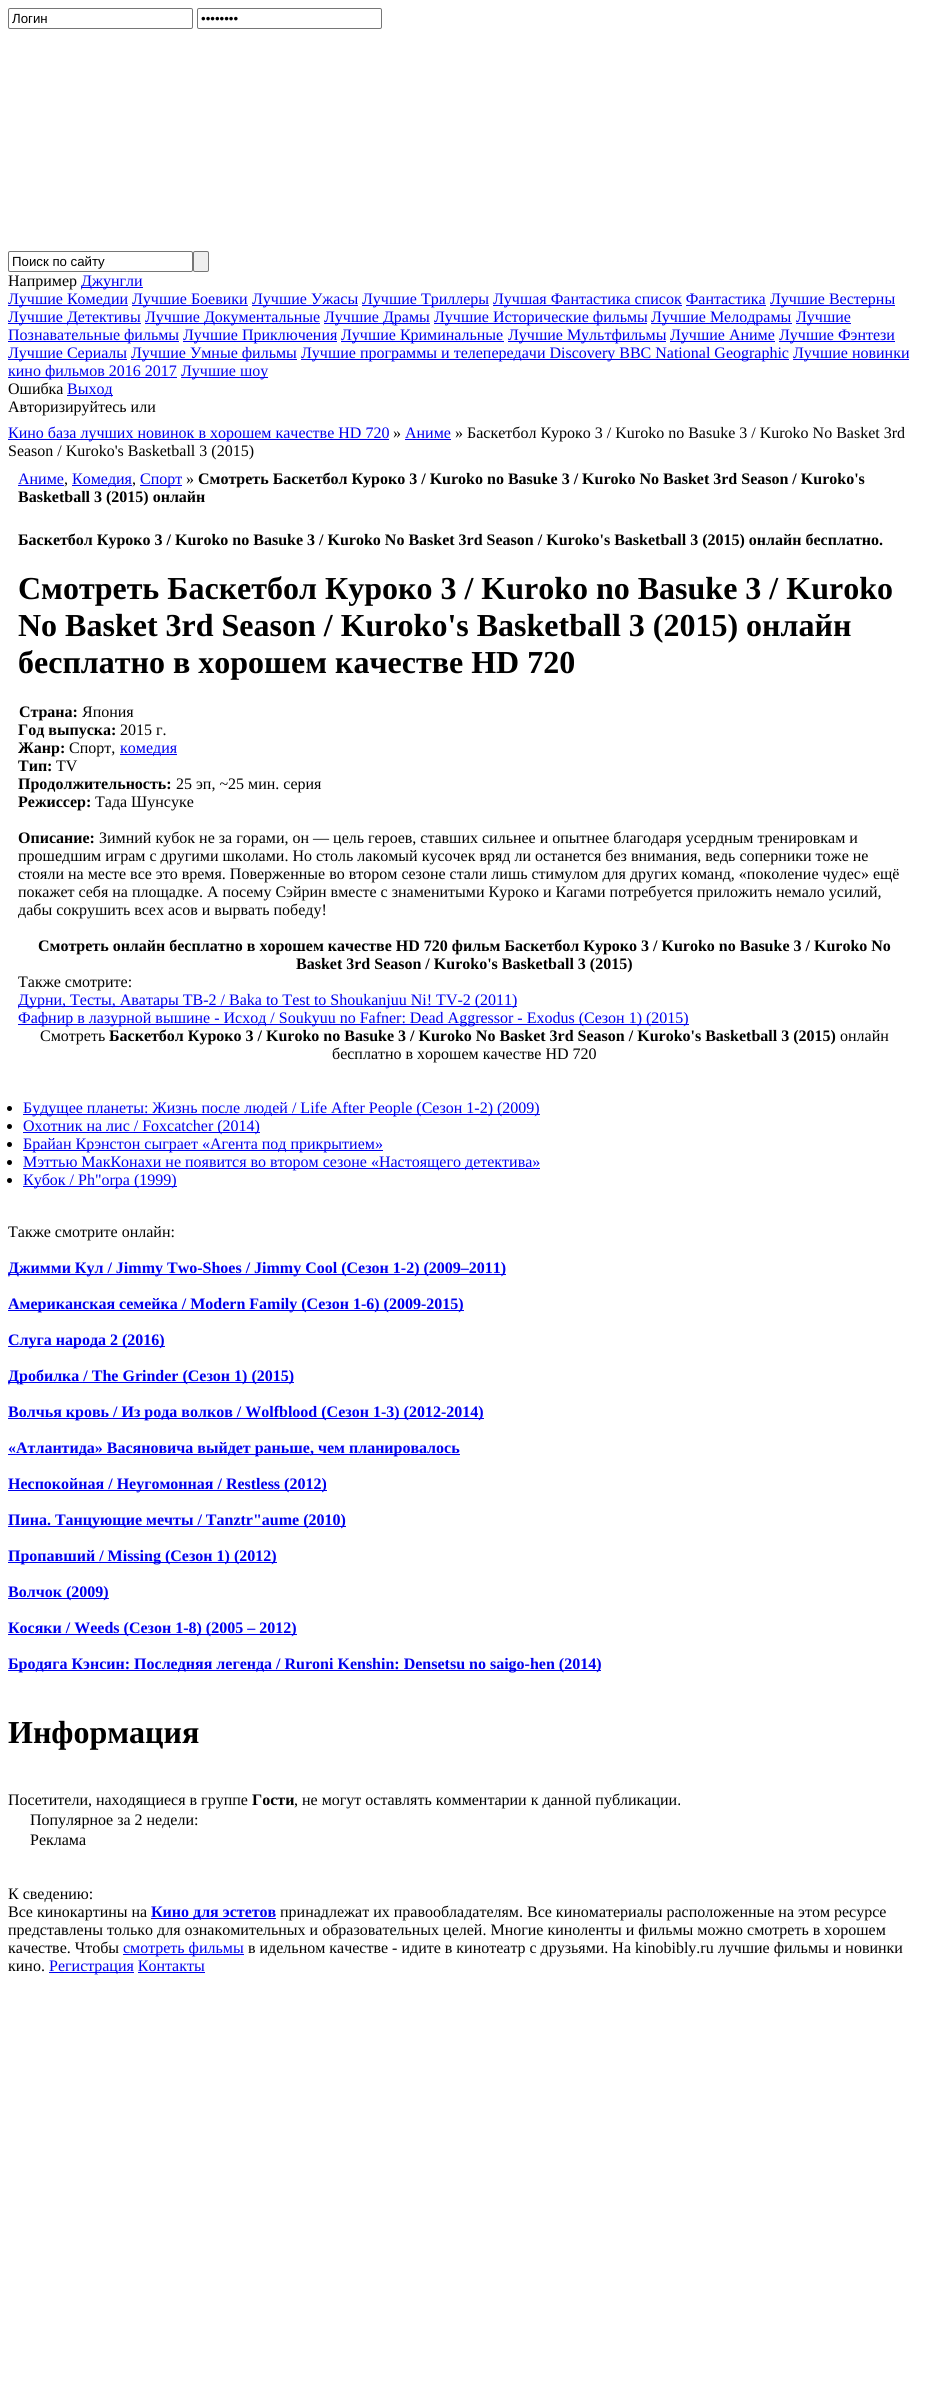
#include <cairo.h>
#include <math.h>
#include <stddef.h>

static cairo_t *c;
static void C(unsigned color){cairo_set_source_rgb(c, (color >> 16) / 255.0, (color >> 8 & 255) / 255.0, (color & 255) / 255.0);}
static void F(const char *family, double size, int italic, int bold){cairo_select_font_face(c, family, italic ? CAIRO_FONT_SLANT_ITALIC : CAIRO_FONT_SLANT_NORMAL,bold ? CAIRO_FONT_WEIGHT_BOLD : CAIRO_FONT_WEIGHT_NORMAL);cairo_set_font_size(c, size);}
static void T(double x, double y, const char *s){cairo_move_to(c, x, y);cairo_show_text(c, s);}
static void R(double x, double y, double w, double h){cairo_rectangle(c, x, y, w, h);cairo_fill(c);}
static void Q(double x, double y, double w, double h, double r){cairo_new_sub_path(c);cairo_arc(c, x + w - r, y + h - r, r, 0, M_PI / 2);cairo_arc(c, x + r, y + h - r, r, M_PI / 2, M_PI);cairo_arc(c, x + r, y + r, r, M_PI, 1.5 * M_PI);cairo_arc(c, x + w - r, y + r, r, 1.5 * M_PI, 2 * M_PI);cairo_close_path(c);}
int main(void) {
cairo_surface_t *surface = cairo_image_surface_create(CAIRO_FORMAT_RGB24, 928, 2405);
c = cairo_create(surface);
cairo_font_options_t *options = cairo_font_options_create();
cairo_font_options_set_hint_metrics(options, CAIRO_HINT_METRICS_OFF);
cairo_font_options_set_hint_style(options, CAIRO_HINT_STYLE_NONE);
cairo_set_font_options(c, options);
cairo_set_miter_limit(c, 4);
C(0xffffff);
cairo_paint(c);
Q(8.5,8.5,184,20,1.5);
C(0x767676);
cairo_set_line_width(c,1);
cairo_stroke(c);
F("Liberation Sans",13.25,0,0);
C(0x000000);
T(12,23,"Логин");
Q(197.5,8.5,184,20,1.5);
C(0x767676);
cairo_stroke(c);
C(0x000000);
T(201,23,"••••••••");
Q(8.5,251.5,184,20,1.5);
C(0x767676);
cairo_stroke(c);
C(0x000000);
T(12,266,"Поиск по сайту");
C(0xefefef);
Q(193.5,251.5,15,20,1.5);
cairo_fill_preserve(c);
C(0x767676);
cairo_stroke(c);
F("Liberation Serif",16,0,0);
C(0x000000);
T(8,286,"Например");
C(0x0000ee);
R(81,287,62,1);
T(81,286,"Джунгли");
R(8,305,120,1);
T(8,304,"Лучшие Комедии");
R(132,305,116,1);
T(132,304,"Лучшие Боевики");
R(252,305,106,1);
T(252,304,"Лучшие Ужасы");
R(362,305,127,1);
T(362,304,"Лучшие Триллеры");
R(493,305,189,1);
T(493,304,"Лучшая Фантастика список Фантастика");
R(770,305,125,1);
T(770,304,"Лучшие Вестерны");
R(686,305,80,1);
R(8,323,133,1);
T(8,322,"Лучшие Детективы");
R(145,323,175,1);
T(145,322,"Лучшие Документальные");
R(324,323,106,1);
T(324,322,"Лучшие Драмы");
R(434,323,213,1);
T(434,322,"Лучшие Исторические фильмы");
R(651,323,141,1);
T(651,322,"Лучшие Мелодрамы");
R(796,323,55,1);
T(796,322,"Лучшие");
R(8,341,171,1);
T(8,340,"Познавательные фильмы");
R(183,341,154,1);
T(183,340,"Лучшие Приключения");
R(341,341,163,1);
T(341,340,"Лучшие Криминальные");
R(508,341,158,1);
T(508,340,"Лучшие Мультфильмы");
R(670,341,105,1);
T(670,340,"Лучшие Аниме");
R(779,341,116,1);
T(779,340,"Лучшие Фэнтези");
R(8,359,119,1);
T(8,358,"Лучшие Сериалы");
R(131,359,166,1);
T(131,358,"Лучшие Умные фильмы");
R(301,359,488,1);
T(301,358,"Лучшие программы и телепередачи Discovery BBC National Geographic");
R(793,359,116,1);
T(793,358,"Лучшие новинки");
R(8,377,169,1);
T(8,376,"кино фильмов 2016 2017");
R(181,377,87,1);
T(181,376,"Лучшие шоу");
C(0x000000);
T(8,394,"Ошибка");
C(0x0000ee);
R(67,395,46,1);
T(67,394,"Выход");
C(0x000000);
T(8,412,"Авторизируйтесь или");
C(0x0000ee);
R(8,439,381,1);
T(8,438,"Кино база лучших новинок в хорошем качестве HD 720");
C(0x000000);
T(393,438,"»");
C(0x0000ee);
T(405,438,"Аниме");
R(405,439,46,1);
C(0x000000);
T(455,438,"» Баскетбол Куроко 3 / Kuroko no Basuke 3 / Kuroko No Basket 3rd");
T(8,456,"Season / Kuroko's Basketball 3 (2015)");
C(0x0000ee);
T(18,484,"Аниме");
R(18,485,46,1);
R(72,485,60,1);
T(72,484,"Комедия");
R(140,485,42,1);
T(140,484,"Спорт");
C(0x000000);
T(186,484,"»");
F("Liberation Serif",16,0,1);
T(198,484,"Смотреть Баскетбол Куроко 3 / Kuroko no Basuke 3 / Kuroko No Basket 3rd Season / Kuroko's");
F("Liberation Serif",16,0,0);
T(64,484,",");
T(132,484,",");
F("Liberation Serif",16,0,1);
T(18,502,"Basketball 3 (2015) онлайн");
T(18,545,"Баскетбол Куроко 3 / Kuroko no Basuke 3 / Kuroko No Basket 3rd Season / Kuroko's Basketball 3 (2015) онлайн бесплатно.");
F("Liberation Serif",32,0,1);
T(18,599,"Смотреть Баскетбол Куроко 3 / Kuroko no Basuke 3 / Kuroko");
T(18,636,"No Basket 3rd Season / Kuroko's Basketball 3 (2015) онлайн");
T(18,673,"бесплатно в хорошем качестве HD 720");
F("Liberation Serif",16,0,1);
T(19,717,"Страна:");
F("Liberation Serif",16,0,0);
T(82,717,"Япония");
F("Liberation Serif",16,0,1);
T(18,735,"Год выпуска:");
F("Liberation Serif",16,0,0);
T(120,735,"2015 г.");
F("Liberation Serif",16,0,1);
T(18,753,"Жанр:");
F("Liberation Serif",16,0,0);
T(69,753,"Спорт,");
C(0x0000ee);
R(120,754,57,1);
T(120,753,"комедия");
F("Liberation Serif",16,0,1);
C(0x000000);
T(18,771,"Тип:");
F("Liberation Serif",16,0,0);
T(56,771,"TV");
F("Liberation Serif",16,0,1);
T(18,789,"Продолжительность:");
F("Liberation Serif",16,0,0);
T(176,789,"25 эп, ~25 мин. серия");
F("Liberation Serif",16,0,1);
T(18,807,"Режиссер:");
F("Liberation Serif",16,0,0);
T(95,807,"Тада Шунсуке");
F("Liberation Serif",16,0,1);
T(18,843,"Описание:");
F("Liberation Serif",16,0,0);
T(99,843,"Зимний кубок не за горами, он — цель героев, ставших сильнее и опытнее благодаря усердным тренировкам и");
T(18,861,"прошедшим играм с другими школами. Но столь лакомый кусочек вряд ли останется без внимания, ведь соперники тоже не");
T(18,879,"стояли на месте все это время. Поверженные во втором сезоне стали лишь стимулом для других команд, «поколение чудес» ещё");
T(18,897,"покажет себя на площадке. А посему Сэйрин вместе с знаменитыми Куроко и Кагами потребуется приложить немало усилий,");
T(18,915,"дабы сокрушить всех асов и вырвать победу!");
F("Liberation Serif",16,0,1);
T(38,951,"Смотреть онлайн бесплатно в хорошем качестве HD 720 фильм Баскетбол Куроко 3 / Kuroko no Basuke 3 / Kuroko No");
T(296,969,"Basket 3rd Season / Kuroko's Basketball 3 (2015)");
F("Liberation Serif",16,0,0);
T(18,987,"Также смотрите:");
C(0x0000ee);
R(18,1006,499,1);
T(18,1005,"Дурни, Тесты, Аватары ТВ-2 / Baka to Test to Shoukanjuu Ni! TV-2 (2011)");
R(18,1024,671,1);
T(18,1023,"Фафнир в лазурной вышине - Исход / Soukyuu no Fafner: Dead Aggressor - Exodus (Сезон 1) (2015)");
C(0x000000);
T(40,1041,"Смотреть");
F("Liberation Serif",16,0,1);
T(109,1041,"Баскетбол Куроко 3 / Kuroko no Basuke 3 / Kuroko No Basket 3rd Season / Kuroko's Basketball 3 (2015)");
F("Liberation Serif",16,0,0);
T(840,1041,"онлайн");
T(332,1059,"бесплатно в хорошем качестве HD 720");
cairo_new_path(c);
cairo_arc(c,9.5,1108.5,2.5,0,2 * M_PI);
cairo_fill(c);
C(0x0000ee);
R(23,1114,517,1);
T(23,1113,"Будущее планеты: Жизнь после людей / Life After People (Сезон 1-2) (2009)");
C(0x000000);
cairo_new_path(c);
cairo_arc(c,9.5,1126.5,2.5,0,2 * M_PI);
cairo_fill(c);
C(0x0000ee);
R(23,1132,237,1);
T(23,1131,"Охотник на лис / Foxcatcher (2014)");
C(0x000000);
cairo_new_path(c);
cairo_arc(c,9.5,1144.5,2.5,0,2 * M_PI);
cairo_fill(c);
C(0x0000ee);
R(23,1150,360,1);
T(23,1149,"Брайан Крэнстон сыграет «Агента под прикрытием»");
C(0x000000);
cairo_new_path(c);
cairo_arc(c,9.5,1162.5,2.5,0,2 * M_PI);
cairo_fill(c);
C(0x0000ee);
R(23,1168,517,1);
T(23,1167,"Мэттью МакКонахи не появится во втором сезоне «Настоящего детектива»");
C(0x000000);
cairo_new_path(c);
cairo_arc(c,9.5,1180.5,2.5,0,2 * M_PI);
cairo_fill(c);
C(0x0000ee);
R(23,1186,154,1);
T(23,1185,"Кубок / Ph\"orpa (1999)");
C(0x000000);
T(8,1237,"Также смотрите онлайн:");
C(0x0000ee);
R(8,1274,498,1);
F("Liberation Serif",16,0,1);
T(8,1273,"Джимми Кул / Jimmy Two-Shoes / Jimmy Cool (Сезон 1-2) (2009–2011)");
R(8,1310,456,1);
T(8,1309,"Американская семейка / Modern Family (Сезон 1-6) (2009-2015)");
R(8,1346,157,1);
T(8,1345,"Слуга народа 2 (2016)");
R(8,1382,286,1);
T(8,1381,"Дробилка / The Grinder (Сезон 1) (2015)");
R(8,1418,476,1);
T(8,1417,"Волчья кровь / Из рода волков / Wolfblood (Сезон 1-3) (2012-2014)");
R(8,1454,452,1);
T(8,1453,"«Атлантида» Васяновича выйдет раньше, чем планировалось");
R(8,1490,319,1);
T(8,1489,"Неспокойная / Неугомонная / Restless (2012)");
R(8,1526,338,1);
T(8,1525,"Пина. Танцующие мечты / Tanztr\"aume (2010)");
R(8,1562,269,1);
T(8,1561,"Пропавший / Missing (Сезон 1) (2012)");
R(8,1598,101,1);
T(8,1597,"Волчок (2009)");
R(8,1634,289,1);
T(8,1633,"Косяки / Weeds (Сезон 1-8) (2005 – 2012)");
R(8,1670,593,1);
T(8,1669,"Бродяга Кэнсин: Последняя легенда / Ruroni Kenshin: Densetsu no saigo-hen (2014)");
F("Liberation Serif",32,0,1);
C(0x000000);
T(8,1743,"Информация");
F("Liberation Serif",16,0,0);
T(8,1805,"Посетители, находящиеся в группе");
F("Liberation Serif",16,0,1);
T(252,1805,"Гости");
F("Liberation Serif",16,0,0);
T(294,1805,", не могут оставлять комментарии к данной публикации.");
T(30,1825,"Популярное за 2 недели:");
T(30,1845,"Реклама");
T(8,1899,"К сведению:");
T(8,1917,"Все кинокартины на");
C(0x0000ee);
R(151,1918,125,1);
F("Liberation Serif",16,0,1);
T(151,1917,"Кино для эстетов");
F("Liberation Serif",16,0,0);
C(0x000000);
T(280,1917,"принадлежат их правообладателям. Все киноматериалы расположенные на этом ресурсе");
T(8,1935,"представлены только для ознакомительных и образовательных целей. Многие киноленты и фильмы можно смотреть в хорошем");
T(8,1953,"качестве. Чтобы");
C(0x0000ee);
R(123,1954,121,1);
T(123,1953,"смотреть фильмы");
C(0x000000);
T(248,1953,"в идельном качестве - идите в кинотеатр с друзьями. На kinobibly.ru лучшие фильмы и новинки");
T(8,1971,"кино.");
C(0x0000ee);
R(49,1972,85,1);
T(49,1971,"Регистрация Контакты");
R(138,1972,67,1);
cairo_surface_write_to_png(surface, "o.png");
cairo_font_options_destroy(options);
cairo_destroy(c);
cairo_surface_destroy(surface);
return 0;
}
